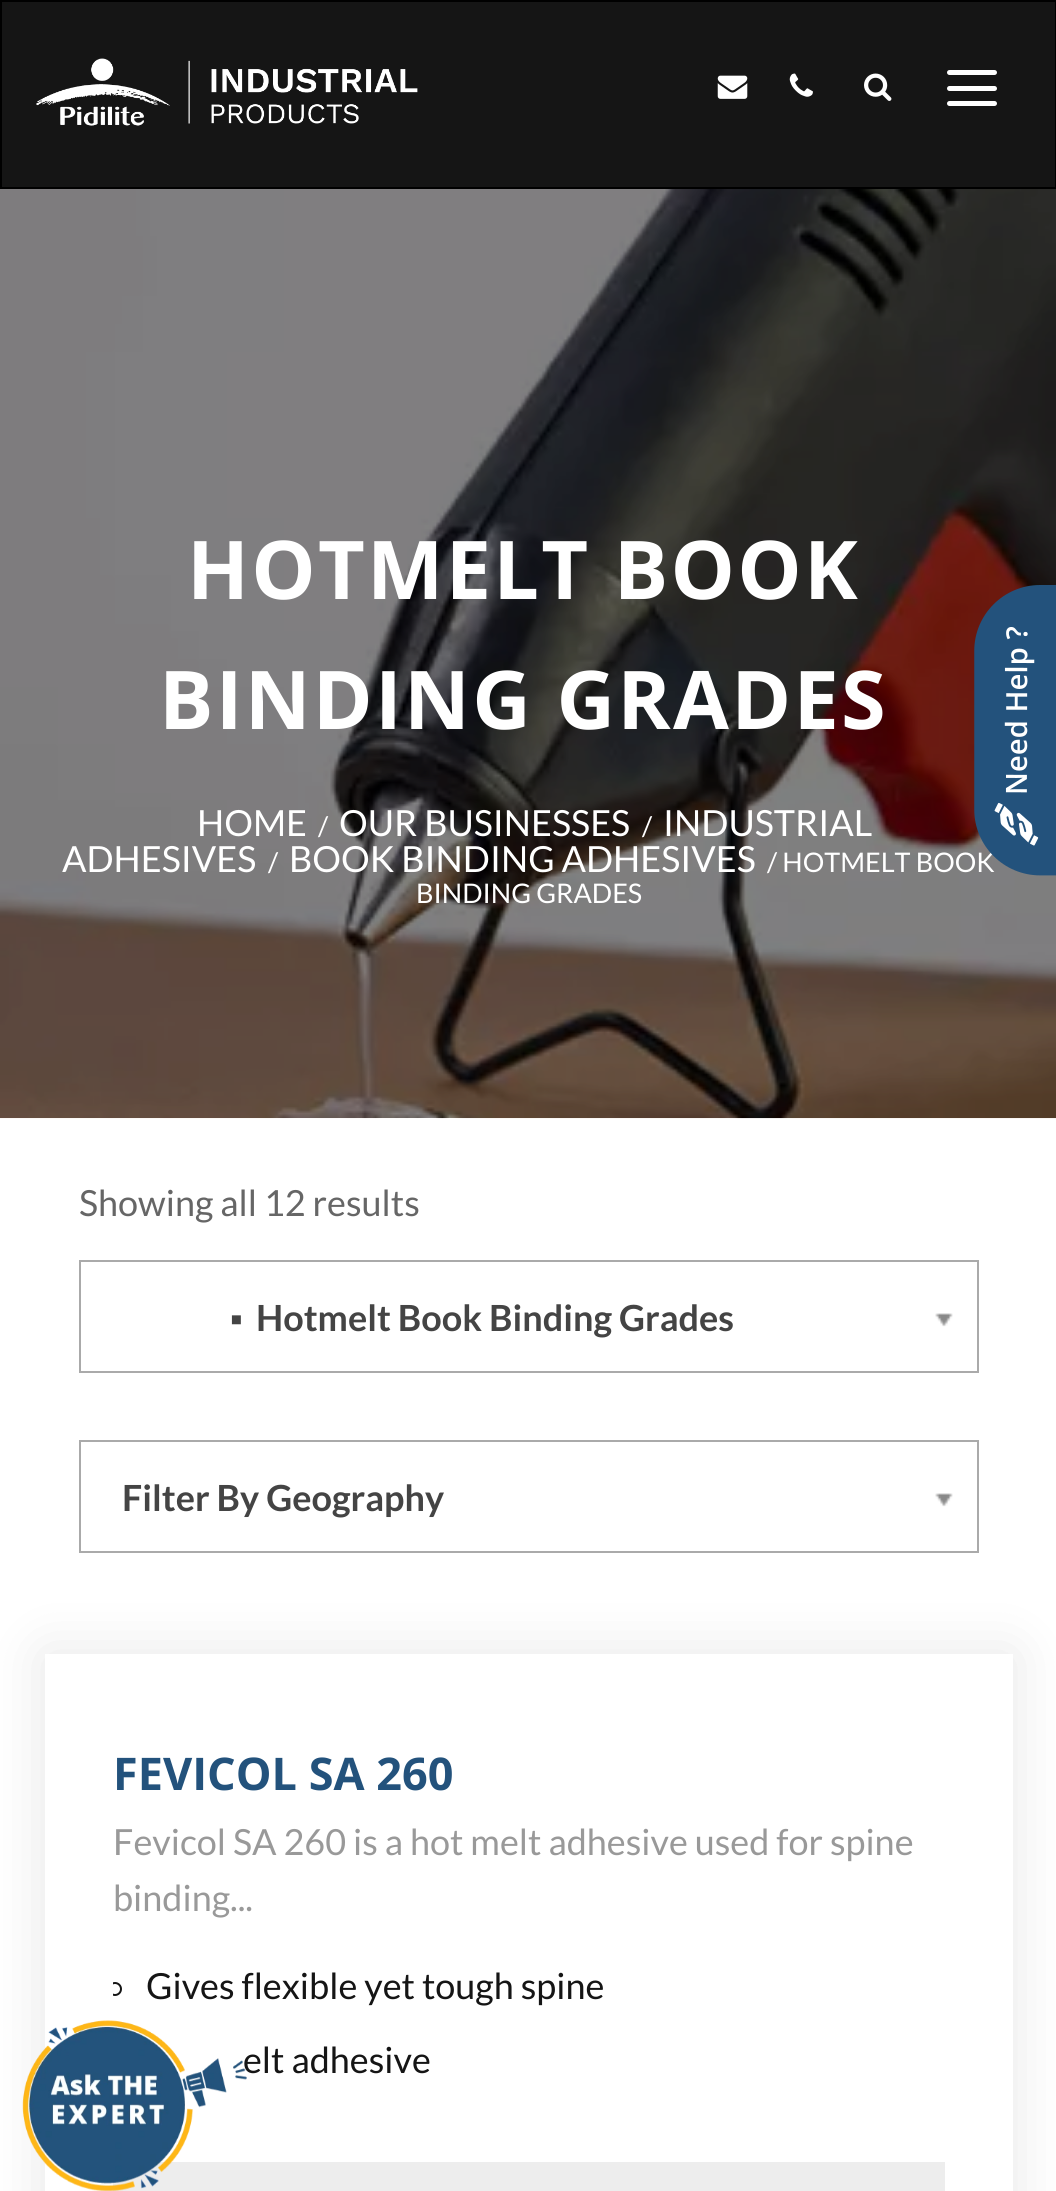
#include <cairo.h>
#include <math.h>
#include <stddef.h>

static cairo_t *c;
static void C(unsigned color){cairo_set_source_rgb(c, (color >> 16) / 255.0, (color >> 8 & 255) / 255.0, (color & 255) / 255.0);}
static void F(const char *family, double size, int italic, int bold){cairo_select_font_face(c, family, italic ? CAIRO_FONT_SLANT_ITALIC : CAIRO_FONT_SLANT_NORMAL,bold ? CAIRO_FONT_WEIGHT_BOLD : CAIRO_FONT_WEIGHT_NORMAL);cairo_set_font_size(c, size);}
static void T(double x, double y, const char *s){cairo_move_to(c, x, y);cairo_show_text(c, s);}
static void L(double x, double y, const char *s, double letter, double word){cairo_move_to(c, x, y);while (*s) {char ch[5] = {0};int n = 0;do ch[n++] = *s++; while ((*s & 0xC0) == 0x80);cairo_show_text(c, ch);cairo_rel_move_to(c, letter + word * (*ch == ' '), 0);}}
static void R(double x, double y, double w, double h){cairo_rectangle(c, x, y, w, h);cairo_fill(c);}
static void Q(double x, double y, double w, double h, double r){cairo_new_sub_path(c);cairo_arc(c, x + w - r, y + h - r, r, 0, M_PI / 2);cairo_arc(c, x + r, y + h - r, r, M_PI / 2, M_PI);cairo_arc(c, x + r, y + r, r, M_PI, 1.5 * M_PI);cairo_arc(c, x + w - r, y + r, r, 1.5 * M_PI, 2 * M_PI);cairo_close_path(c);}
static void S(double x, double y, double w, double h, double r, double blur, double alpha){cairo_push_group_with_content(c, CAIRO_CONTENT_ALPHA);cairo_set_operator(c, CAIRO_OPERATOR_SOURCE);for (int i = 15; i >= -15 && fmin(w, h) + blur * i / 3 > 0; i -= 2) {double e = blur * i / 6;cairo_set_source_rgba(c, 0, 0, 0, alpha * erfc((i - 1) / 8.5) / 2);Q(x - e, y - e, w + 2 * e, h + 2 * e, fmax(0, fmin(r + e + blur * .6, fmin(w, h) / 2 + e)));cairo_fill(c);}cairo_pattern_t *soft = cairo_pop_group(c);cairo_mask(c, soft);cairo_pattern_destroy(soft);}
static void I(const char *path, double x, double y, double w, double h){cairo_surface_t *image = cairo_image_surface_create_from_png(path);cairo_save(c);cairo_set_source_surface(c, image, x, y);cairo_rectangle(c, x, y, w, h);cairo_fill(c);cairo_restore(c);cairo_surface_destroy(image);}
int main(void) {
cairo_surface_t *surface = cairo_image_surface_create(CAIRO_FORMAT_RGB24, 1056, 2191);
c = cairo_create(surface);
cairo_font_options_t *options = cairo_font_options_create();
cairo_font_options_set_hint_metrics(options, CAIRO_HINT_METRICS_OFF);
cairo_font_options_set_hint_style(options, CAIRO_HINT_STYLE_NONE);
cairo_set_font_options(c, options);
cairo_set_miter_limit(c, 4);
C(0xffffff);
cairo_paint(c);
C(0x000000);
R(0,0,1056,189);
C(0x151515);
R(2,2,1053,185);
I("1.png",36,58,382,68);
I("2.png",717,75,31,24);
I("3.png",789,73,24,24);
I("4.png",864,73,28,28);
C(0xffffff);
Q(947,70,50,5,2.5);
cairo_fill(c);
Q(947,86,50,5,2.5);
cairo_fill(c);
Q(947,101,50,5,2.5);
cairo_fill(c);
I("5.png",0,189,1056,930);
F("Open Sans",81,0,1);
L(187,599,"HOTMELT BOOK",2.25,0);
L(159,729,"BINDING GRADES",2.25,0);
F("Lato",36,0,0);
T(197,836,"HOME");
F("Lato",27,0,0);
T(318,836,"/");
F("Lato",36,0,0);
T(339,836,"OUR BUSINESSES");
F("Lato",27,0,0);
T(642,836,"/");
F("Lato",36,0,0);
T(663,836,"INDUSTRIAL");
T(62,872,"ADHESIVES");
F("Lato",27,0,0);
T(268,872,"/");
F("Lato",36,0,0);
T(289,872,"BOOK BINDING ADHESIVES");
F("Lato",27,0,0);
T(767,872,"/ HOTMELT BOOK");
T(416,903,"BINDING GRADES");
I("6.png",974,585,82,291);
F("Lato",36,0,0);
C(0x666666);
T(79,1216,"Showing all 12 results");
cairo_rectangle(c,80,1261,898,111);
C(0xaaaaaa);
cairo_stroke(c);
F("Liberation Sans",36,0,1);
C(0x444444);
T(230,1331,"▪");
F("Lato",36,0,1);
T(256,1331,"Hotmelt Book Binding Grades");
I("7.png",935,1313,18,14);
cairo_rectangle(c,80,1441,898,111);
C(0xaaaaaa);
cairo_stroke(c);
C(0x444444);
T(122,1511,"Filter By Geography");
I("7.png",935,1493,18,14);
cairo_save(c);
cairo_set_fill_rule(c,CAIRO_FILL_RULE_EVEN_ODD);
cairo_new_path(c);
cairo_move_to(c,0,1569);
cairo_line_to(c,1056,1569);
cairo_line_to(c,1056,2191);
cairo_line_to(c,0,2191);
cairo_close_path(c);
cairo_move_to(c,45,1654);
cairo_line_to(c,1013,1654);
cairo_line_to(c,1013,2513);
cairo_line_to(c,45,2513);
cairo_close_path(c);
cairo_clip(c);
C(0x000000);
S(45,1654,968,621,0,28,.1);
cairo_restore(c);
F("Open Sans",45,0,1);
C(0x23527c);
T(113,1790,"FEVICOL SA 260");
F("Lato",36,0,0);
C(0x999999);
T(113,1855,"Fevicol SA 260 is a hot melt adhesive used for spine");
T(113,1911,"binding...");
cairo_save(c);
cairo_rectangle(c,113,1924,832,205);
cairo_clip(c);
cairo_arc(c,115,1989,6,0,2 * M_PI);
C(0x151515);
cairo_stroke(c);
cairo_restore(c);
C(0x151515);
T(146,1999,"Gives flexible yet tough spine");
T(243,2073,"elt adhesive");
C(0xededed);
R(113,2162,832,29);
I("8.png",22,2020,225,171);
cairo_surface_write_to_png(surface, "o.png");
cairo_font_options_destroy(options);
cairo_destroy(c);
cairo_surface_destroy(surface);
return 0;
}
